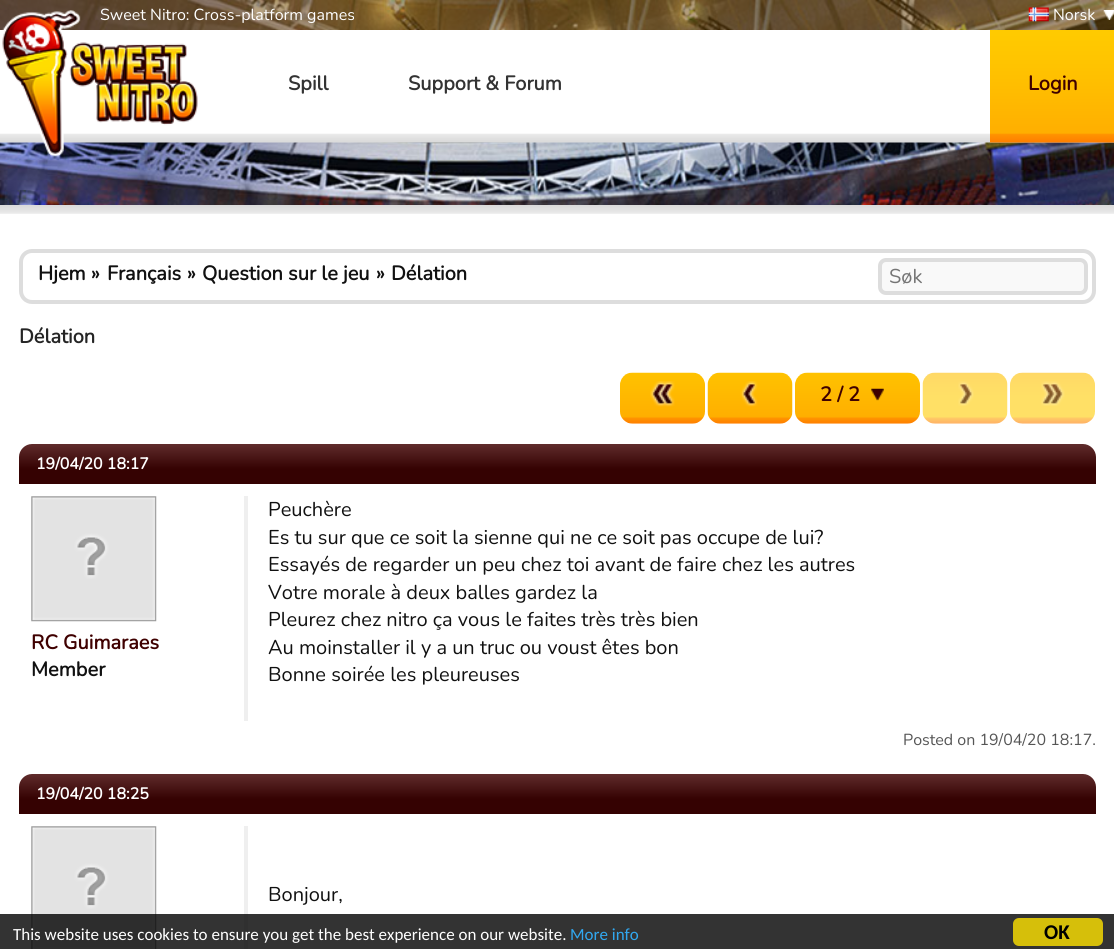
#include <cairo.h>
#include <math.h>
#include <stddef.h>

static cairo_t *c;
static void C(unsigned color){cairo_set_source_rgb(c, (color >> 16) / 255.0, (color >> 8 & 255) / 255.0, (color & 255) / 255.0);}
static void F(const char *family, double size, int italic, int bold){cairo_select_font_face(c, family, italic ? CAIRO_FONT_SLANT_ITALIC : CAIRO_FONT_SLANT_NORMAL,bold ? CAIRO_FONT_WEIGHT_BOLD : CAIRO_FONT_WEIGHT_NORMAL);cairo_set_font_size(c, size);}
static void T(double x, double y, const char *s){cairo_move_to(c, x, y);cairo_show_text(c, s);}
static void R(double x, double y, double w, double h){cairo_rectangle(c, x, y, w, h);cairo_fill(c);}
static void Q(double x, double y, double w, double h, double r){cairo_new_sub_path(c);cairo_arc(c, x + w - r, y + h - r, r, 0, M_PI / 2);cairo_arc(c, x + r, y + h - r, r, M_PI / 2, M_PI);cairo_arc(c, x + r, y + r, r, M_PI, 1.5 * M_PI);cairo_arc(c, x + w - r, y + r, r, 1.5 * M_PI, 2 * M_PI);cairo_close_path(c);}
static void I(const char *path, double x, double y, double w, double h){cairo_surface_t *image = cairo_image_surface_create_from_png(path);cairo_save(c);cairo_set_source_surface(c, image, x, y);cairo_rectangle(c, x, y, w, h);cairo_fill(c);cairo_restore(c);cairo_surface_destroy(image);}
int main(void) {
cairo_surface_t *surface = cairo_image_surface_create(CAIRO_FORMAT_RGB24, 1114, 949);
c = cairo_create(surface);
cairo_font_options_t *options = cairo_font_options_create();
cairo_font_options_set_hint_metrics(options, CAIRO_HINT_METRICS_OFF);
cairo_font_options_set_hint_style(options, CAIRO_HINT_STYLE_NONE);
cairo_set_font_options(c, options);
cairo_set_miter_limit(c, 4);
cairo_pattern_t *gradient;
C(0xffffff);
cairo_paint(c);
I("1.png",0,0,1114,205);
cairo_set_source_rgba(c,0.427,0.251,0,0.5);
R(0,0,1114,30);
F("Nunito ExtraLight",16,0,0);
C(0xffffff);
T(100,20,"Sweet Nitro: Cross-platform games");
I("2.png",1103,10,11,10);
I("3.png",1028,7,21,15);
T(1053,20,"Norsk");
I("4.png",0,30,1114,113);
I("5.png",2,10,196,147);
F("Nunito",20,0,1);
C(0x333333);
T(288,90,"Spill");
T(408,90,"Support & Forum");
I("6.png",990,30,124,113);
C(0x3f0000);
T(1028,90,"Login");
I("7.png",0,205,1114,9);
Q(21,251,1073,51,11);
C(0xdddddd);
cairo_set_line_width(c,4);
cairo_stroke(c);
C(0x111111);
T(38,280,"Hjem");
T(91,280,"»");
T(107,280,"Français");
T(187,280,"»");
T(202,280,"Question sur le jeu");
T(376,280,"»");
T(391,280,"Délation");
C(0xf9f9f9);
Q(880,260,206,33,6);
cairo_fill_preserve(c);
C(0xdddddd);
cairo_stroke(c);
F("Nunito ExtraLight",20,0,0);
C(0x757575);
T(889,283,"Søk");
F("Nunito",20,0,1);
C(0x252525);
T(19,343,"Délation");
I("8.png",620,372,85,52);
I("9.png",650,381,25,26);
I("10.png",707,372,86,52);
I("11.png",740,381,18,26);
I("12.png",795,372,125,52);
C(0x3f0000);
T(820,401,"2 / 2");
I("13.png",871,388,13,13);
I("14.png",922,372,86,52);
I("15.png",958,381,16,25);
I("16.png",1010,372,85,52);
I("17.png",1041,381,24,25);
gradient = cairo_pattern_create_linear(558,444,558,484);
cairo_pattern_add_color_stop_rgba(gradient,0,0.376,0.173,0.173,1);
cairo_pattern_add_color_stop_rgba(gradient,.62,0.208,0.008,0.008,1);
cairo_set_source(c,gradient);
cairo_pattern_destroy(gradient);
cairo_new_path(c);
cairo_move_to(c,32,444);
cairo_line_to(c,1083,444);
cairo_curve_to(c,1090,444,1096,450,1096,457);
cairo_line_to(c,1096,484);
cairo_line_to(c,19,484);
cairo_line_to(c,19,457);
cairo_curve_to(c,19,450,25,444,32,444);
cairo_close_path(c);
cairo_fill(c);
F("Nunito",16,0,1);
C(0xffffff);
T(36,469,"19/04/20 18:17");
I("18.png",31,496,126,126);
F("Nunito",20,0,1);
C(0x3f0000);
T(31,649,"RC Guimaraes");
C(0x111111);
T(31,676,"Member");
C(0xefefef);
R(244,496,4,225);
F("Nunito ExtraLight",20,0,0);
C(0x111111);
T(268,516,"Peuchère");
T(268,544,"Es tu sur que ce soit la sienne qui ne ce soit pas occupe de lui?");
T(268,571,"Essayés de regarder un peu chez toi avant de faire chez les autres");
T(268,599,"Votre morale à deux balles gardez la");
T(268,626,"Pleurez chez nitro ça vous le faites très très bien");
T(268,654,"Au moinstaller il y a un truc ou voust êtes bon");
T(268,681,"Bonne soirée les pleureuses");
F("Nunito ExtraLight",16,0,0);
C(0x555555);
T(903,745,"Posted on 19/04/20 18:17.");
gradient = cairo_pattern_create_linear(558,774,558,814);
cairo_pattern_add_color_stop_rgba(gradient,0,0.376,0.173,0.173,1);
cairo_pattern_add_color_stop_rgba(gradient,.62,0.208,0.008,0.008,1);
cairo_set_source(c,gradient);
cairo_pattern_destroy(gradient);
cairo_new_path(c);
cairo_move_to(c,32,774);
cairo_line_to(c,1083,774);
cairo_curve_to(c,1090,774,1096,780,1096,787);
cairo_line_to(c,1096,814);
cairo_line_to(c,19,814);
cairo_line_to(c,19,787);
cairo_curve_to(c,19,780,25,774,32,774);
cairo_close_path(c);
cairo_fill(c);
F("Nunito",16,0,1);
C(0xffffff);
T(36,799,"19/04/20 18:25");
I("19.png",31,826,126,123);
C(0xefefef);
R(244,826,4,123);
F("Nunito ExtraLight",20,0,0);
C(0x111111);
T(268,901,"Bonjour,");
cairo_set_source_rgba(c,0,0,0,0.8);
R(0,914,1114,35);
F("Carlito",17,0,0);
C(0xffffff);
T(13,940,"This website uses cookies to ensure you get the best experience on our website.");
C(0x31a8f0);
T(570,940,"More info");
C(0xd6bf0a);
Q(1013,918,90,28,6);
cairo_fill(c);
F("Carlito",21,0,1);
C(0x000000);
T(1044,939,"OK");
cairo_surface_write_to_png(surface, "o.png");
cairo_font_options_destroy(options);
cairo_destroy(c);
cairo_surface_destroy(surface);
return 0;
}
